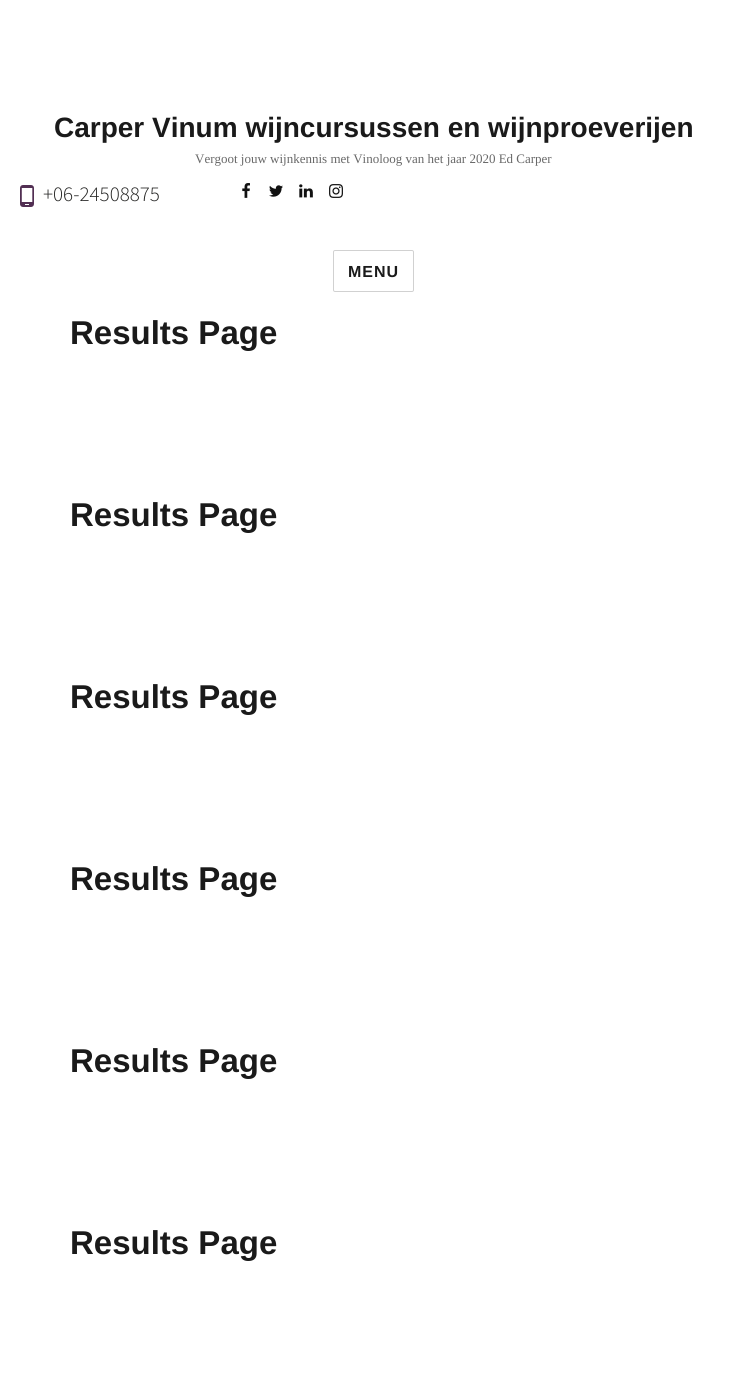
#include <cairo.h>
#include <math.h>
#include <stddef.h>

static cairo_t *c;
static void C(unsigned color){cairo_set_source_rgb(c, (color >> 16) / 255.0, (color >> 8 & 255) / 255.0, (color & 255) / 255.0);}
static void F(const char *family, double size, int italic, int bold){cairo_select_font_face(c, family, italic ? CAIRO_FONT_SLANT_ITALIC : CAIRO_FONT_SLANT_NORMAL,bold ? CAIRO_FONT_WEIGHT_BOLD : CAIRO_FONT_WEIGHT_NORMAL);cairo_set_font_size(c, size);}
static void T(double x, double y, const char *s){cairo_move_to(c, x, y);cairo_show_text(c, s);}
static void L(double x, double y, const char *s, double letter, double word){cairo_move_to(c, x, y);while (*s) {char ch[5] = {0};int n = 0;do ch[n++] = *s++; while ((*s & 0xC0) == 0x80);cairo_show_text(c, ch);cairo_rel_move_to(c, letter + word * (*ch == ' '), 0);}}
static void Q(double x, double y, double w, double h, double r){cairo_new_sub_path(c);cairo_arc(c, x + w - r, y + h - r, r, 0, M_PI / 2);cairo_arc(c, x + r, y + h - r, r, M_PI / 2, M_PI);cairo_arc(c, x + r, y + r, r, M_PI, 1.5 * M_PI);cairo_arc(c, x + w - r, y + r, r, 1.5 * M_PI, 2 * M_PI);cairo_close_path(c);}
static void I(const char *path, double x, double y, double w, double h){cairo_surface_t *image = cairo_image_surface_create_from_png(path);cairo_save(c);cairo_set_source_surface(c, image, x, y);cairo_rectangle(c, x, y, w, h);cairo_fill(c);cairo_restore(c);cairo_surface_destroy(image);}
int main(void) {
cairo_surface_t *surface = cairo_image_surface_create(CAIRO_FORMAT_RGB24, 747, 1381);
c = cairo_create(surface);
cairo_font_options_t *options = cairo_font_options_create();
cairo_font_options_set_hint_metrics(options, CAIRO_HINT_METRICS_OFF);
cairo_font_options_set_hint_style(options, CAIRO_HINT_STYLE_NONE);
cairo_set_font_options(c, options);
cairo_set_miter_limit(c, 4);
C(0xffffff);
cairo_paint(c);
F("Liberation Sans",28,0,1);
C(0x1a1a1a);
T(54,137,"Carper Vinum wijncursussen en wijnproeverijen");
F("Liberation Serif",13,0,0);
C(0x686868);
T(195,163,"Vergoot jouw wijnkennis met Vinoloog van het jaar 2020 Ed Carper");
I("1.png",20,185,14,22);
F("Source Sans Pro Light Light",21,0,0);
C(0x242423);
T(43,201,"+06-24508875");
I("2.png",242,183,8,15);
I("3.png",269,185,14,12);
I("4.png",299,184,14,14);
I("5.png",329,184,14,14);
Q(333.5,250.5,80,41,1.5);
C(0xd1d1d1);
cairo_set_line_width(c,1);
cairo_stroke(c);
F("Liberation Sans",16,0,1);
C(0x1a1a1a);
L(348,277,"MENU",1,0);
F("Liberation Sans",33,0,1);
T(70,344,"Results Page");
T(70,526,"Results Page");
T(70,708,"Results Page");
T(70,890,"Results Page");
T(70,1072,"Results Page");
T(70,1254,"Results Page");
cairo_surface_write_to_png(surface, "o.png");
cairo_font_options_destroy(options);
cairo_destroy(c);
cairo_surface_destroy(surface);
return 0;
}
